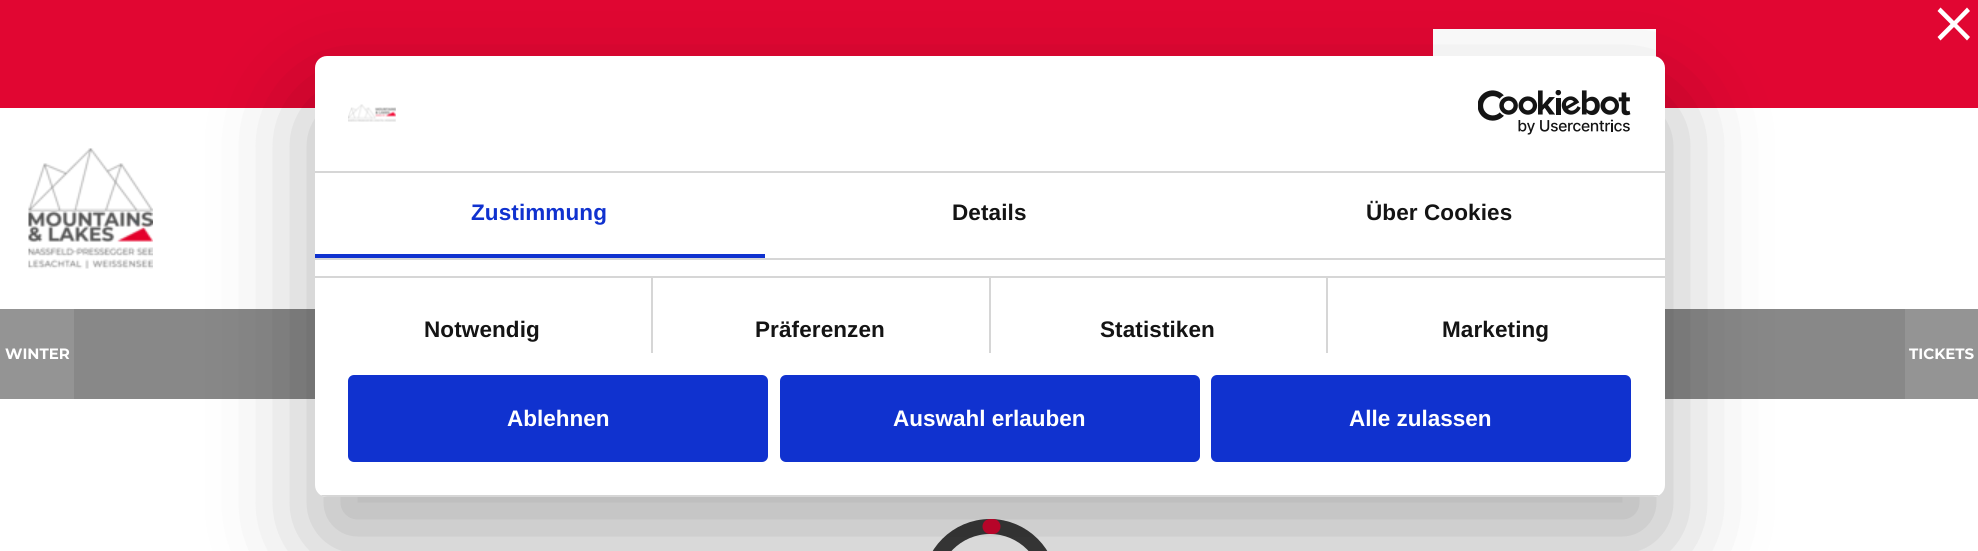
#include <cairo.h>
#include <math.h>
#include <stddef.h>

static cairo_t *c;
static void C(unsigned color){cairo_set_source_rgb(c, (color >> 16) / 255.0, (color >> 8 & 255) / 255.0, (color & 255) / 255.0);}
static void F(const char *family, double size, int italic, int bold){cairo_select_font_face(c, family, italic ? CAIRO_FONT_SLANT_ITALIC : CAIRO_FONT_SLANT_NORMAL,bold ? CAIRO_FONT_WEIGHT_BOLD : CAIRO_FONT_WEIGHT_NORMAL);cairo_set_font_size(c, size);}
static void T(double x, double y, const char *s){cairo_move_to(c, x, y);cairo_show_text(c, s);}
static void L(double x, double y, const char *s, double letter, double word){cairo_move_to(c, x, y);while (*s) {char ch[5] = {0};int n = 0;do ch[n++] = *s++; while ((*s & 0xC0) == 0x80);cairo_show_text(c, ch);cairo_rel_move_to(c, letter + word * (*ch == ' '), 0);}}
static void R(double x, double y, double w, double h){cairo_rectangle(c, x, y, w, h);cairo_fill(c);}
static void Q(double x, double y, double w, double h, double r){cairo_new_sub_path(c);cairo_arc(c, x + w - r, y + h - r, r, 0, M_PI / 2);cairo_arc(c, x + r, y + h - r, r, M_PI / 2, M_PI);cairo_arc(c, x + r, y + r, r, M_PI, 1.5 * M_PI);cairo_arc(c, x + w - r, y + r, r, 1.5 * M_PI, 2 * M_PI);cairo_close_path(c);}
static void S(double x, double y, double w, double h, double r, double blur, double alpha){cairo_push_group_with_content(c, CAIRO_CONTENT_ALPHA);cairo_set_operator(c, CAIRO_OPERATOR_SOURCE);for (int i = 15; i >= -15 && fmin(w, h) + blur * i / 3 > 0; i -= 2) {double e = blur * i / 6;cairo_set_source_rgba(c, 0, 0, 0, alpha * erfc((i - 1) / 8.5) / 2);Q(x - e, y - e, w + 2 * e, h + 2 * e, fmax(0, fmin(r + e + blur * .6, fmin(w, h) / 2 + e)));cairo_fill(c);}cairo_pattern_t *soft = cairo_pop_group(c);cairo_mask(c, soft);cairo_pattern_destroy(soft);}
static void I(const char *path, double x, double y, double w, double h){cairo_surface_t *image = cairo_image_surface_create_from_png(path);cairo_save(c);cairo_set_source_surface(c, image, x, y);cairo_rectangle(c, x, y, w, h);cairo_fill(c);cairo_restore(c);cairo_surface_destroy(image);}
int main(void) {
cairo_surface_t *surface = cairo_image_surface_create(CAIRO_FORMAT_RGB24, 1978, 551);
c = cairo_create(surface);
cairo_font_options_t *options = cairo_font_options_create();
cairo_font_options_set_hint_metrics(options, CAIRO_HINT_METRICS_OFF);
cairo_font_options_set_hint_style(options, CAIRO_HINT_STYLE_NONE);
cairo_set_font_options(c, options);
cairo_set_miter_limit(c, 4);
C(0xffffff);
cairo_paint(c);
C(0xe10632);
R(0,0,1978,108);
C(0xffffff);
R(1433,29,223,28);
C(0x888888);
R(74,309,1831,90);
cairo_new_path(c);
cairo_move_to(c,990,526.5);
cairo_curve_to(c,1023,526.5,1050,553.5,1050,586.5);
cairo_curve_to(c,1050,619.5,1023,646.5,990,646.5);
cairo_curve_to(c,957,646.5,930,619.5,930,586.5);
cairo_curve_to(c,930,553.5,957,526.5,990,526.5);
C(0x3d3d3d);
cairo_set_line_width(c,15);
cairo_stroke(c);
cairo_new_path(c);
cairo_move_to(c,990,526.5);
cairo_line_to(c,993,526.5);
C(0xe10632);
cairo_set_line_cap(c,CAIRO_LINE_CAP_ROUND);
cairo_stroke(c);
C(0x000000);
S(315,104,1350,441,12,51,.3);
C(0xffffff);
Q(315,56,1350,441,12);
cairo_fill(c);
C(0xd6d6d6);
R(315,171,1350,2);
I("1.png",348,104,48,18);
I("2.png",1478,90,153,45);
R(315,258,1350,2);
C(0x1032cf);
R(315,254,450,4);
F("Liberation Sans",22.5,0,1);
L(471,220,"Zustimmung",.1,0);
C(0x141414);
L(952,220,"Details",.1,0);
L(1366,220,"Über Cookies",.1,0);
C(0xd6d6d6);
R(315,276,1350,2);
R(651,278,2,75);
C(0x141414);
L(424,337,"Notwendig",.1,0);
C(0xd6d6d6);
R(989,278,2,75);
C(0x141414);
L(755,337,"Präferenzen",.1,0);
C(0xd6d6d6);
R(1326,278,2,75);
C(0x141414);
L(1100,337,"Statistiken",.1,0);
L(1442,337,"Marketing",.1,0);
cairo_save(c);
Q(315,56,1350,441,12);
cairo_clip(c);
C(0xd6d6d6);
R(315,495,1350,2);
cairo_restore(c);
C(0x1032cf);
Q(349.5,376.5,417,84,4.5);
cairo_fill_preserve(c);
cairo_set_line_width(c,3);
cairo_set_line_cap(c,CAIRO_LINE_CAP_BUTT);
cairo_stroke(c);
C(0xffffff);
T(507,426,"Ablehnen");
C(0x1032cf);
Q(781.5,376.5,417,84,4.5);
cairo_fill_preserve(c);
cairo_stroke(c);
C(0xffffff);
T(893,426,"Auswahl erlauben");
C(0x1032cf);
Q(1212.5,376.5,417,84,4.5);
cairo_fill_preserve(c);
cairo_stroke(c);
C(0xffffff);
T(1349,426,"Alle zulassen");
cairo_new_path(c);
cairo_move_to(c,1970,11);
cairo_line_to(c,1957,24);
cairo_line_to(c,1970,37);
cairo_line_to(c,1967,40.5);
cairo_line_to(c,1954,27);
cairo_line_to(c,1940.5,40.5);
cairo_line_to(c,1937.5,37);
cairo_line_to(c,1950.5,24);
cairo_line_to(c,1937.5,11);
cairo_line_to(c,1940.5,7.5);
cairo_line_to(c,1954,21);
cairo_line_to(c,1967,7.5);
cairo_close_path(c);
cairo_fill(c);
I("3.png",28,148,125,121);
C(0x949494);
R(0,309,74,90);
F("Montserrat",15,0,1);
C(0xffffff);
T(5,359,"WINTER");
C(0x949494);
R(1905,309,73,90);
C(0xffffff);
T(1909,359,"TICKETS");
cairo_surface_write_to_png(surface, "o.png");
cairo_font_options_destroy(options);
cairo_destroy(c);
cairo_surface_destroy(surface);
return 0;
}
